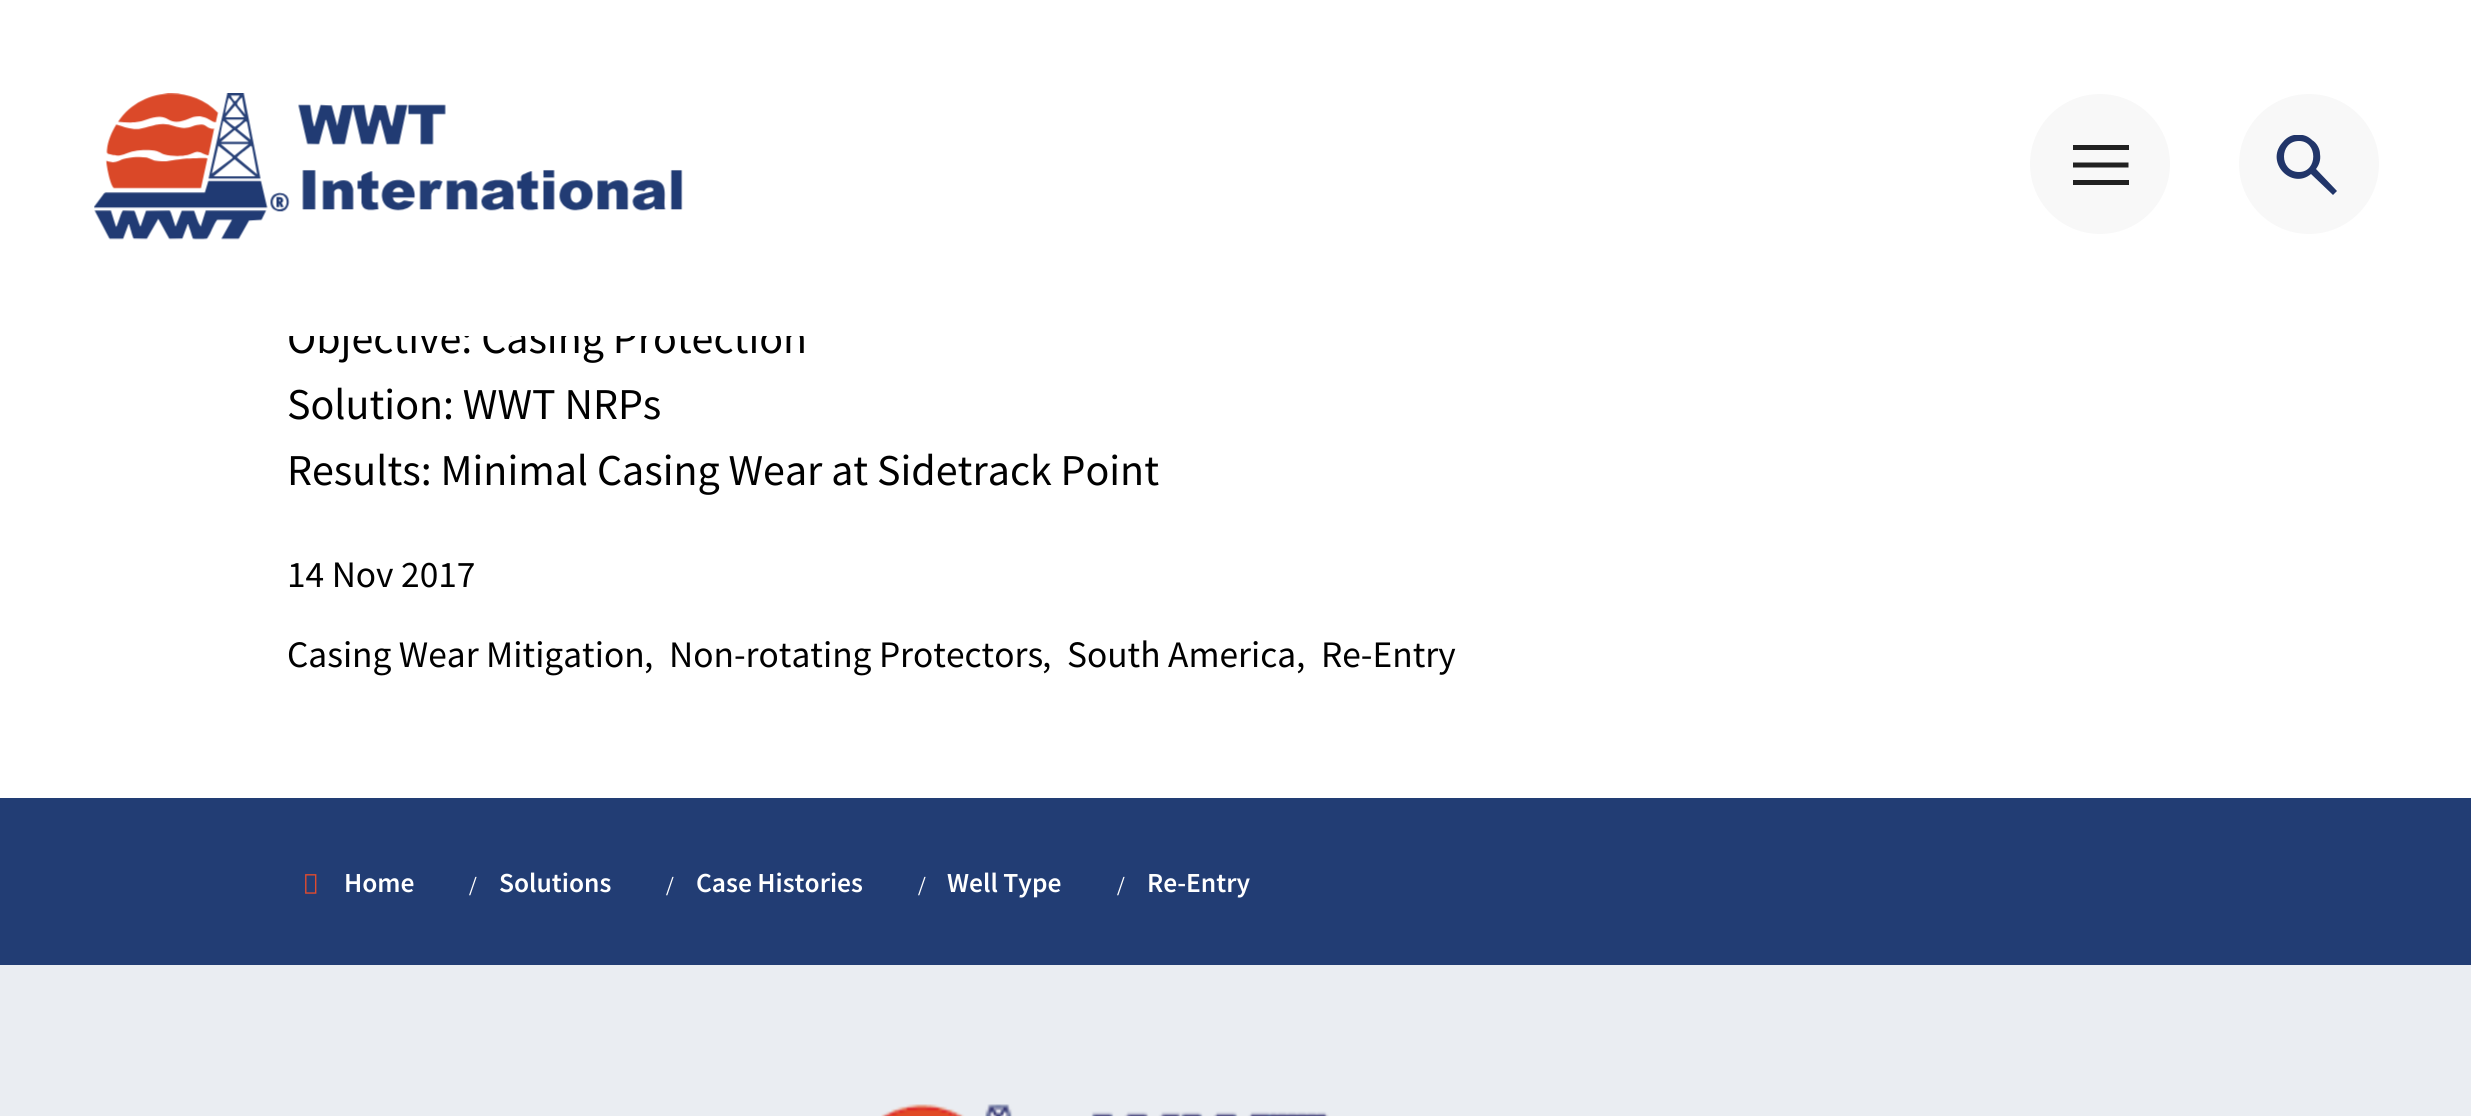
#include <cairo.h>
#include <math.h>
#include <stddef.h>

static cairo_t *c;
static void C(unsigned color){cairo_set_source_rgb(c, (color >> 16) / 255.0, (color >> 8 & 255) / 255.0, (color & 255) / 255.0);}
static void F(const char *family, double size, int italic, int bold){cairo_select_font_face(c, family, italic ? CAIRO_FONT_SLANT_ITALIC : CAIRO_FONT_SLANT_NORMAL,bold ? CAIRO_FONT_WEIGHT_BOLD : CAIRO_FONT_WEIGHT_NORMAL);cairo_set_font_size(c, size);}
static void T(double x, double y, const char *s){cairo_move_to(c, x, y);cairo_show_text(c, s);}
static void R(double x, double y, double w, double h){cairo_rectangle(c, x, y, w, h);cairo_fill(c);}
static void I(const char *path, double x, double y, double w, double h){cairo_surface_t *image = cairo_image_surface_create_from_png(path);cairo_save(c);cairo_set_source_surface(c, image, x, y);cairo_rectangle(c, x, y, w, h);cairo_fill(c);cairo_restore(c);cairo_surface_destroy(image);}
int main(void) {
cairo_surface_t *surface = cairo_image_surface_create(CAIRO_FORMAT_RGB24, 2471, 1116);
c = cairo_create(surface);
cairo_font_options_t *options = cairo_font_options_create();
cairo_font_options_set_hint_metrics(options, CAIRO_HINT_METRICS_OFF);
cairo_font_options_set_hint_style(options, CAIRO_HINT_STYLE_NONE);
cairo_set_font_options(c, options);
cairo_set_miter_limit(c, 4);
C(0xffffff);
cairo_paint(c);
F("Source Sans Pro",44,0,0);
C(0x000000);
T(287,353,"Objective: Casing Protection");
C(0xffffff);
R(289,321,515,15);
I("1.png",94,93,589,147);
C(0xf8f8f8);
cairo_arc(c,2100,164,70,0,2 * M_PI);
cairo_fill(c);
cairo_new_path(c);
cairo_move_to(c,2075.5,165);
cairo_line_to(c,2126,165);
C(0x212121);
cairo_set_line_width(c,5);
cairo_set_line_cap(c,CAIRO_LINE_CAP_SQUARE);
cairo_stroke(c);
R(2073,145,56,5);
R(2073,180,56,5);
C(0xf8f8f8);
cairo_arc(c,2309,164,70,0,2 * M_PI);
cairo_fill(c);
cairo_save(c);
cairo_rectangle(c,2252,135,110,60);
cairo_clip(c);
C(0x213569);
cairo_new_path(c);
cairo_move_to(c,2333,195);
cairo_line_to(c,2311,174);
cairo_curve_to(c,2292,190,2265,163,2282,143);
cairo_curve_to(c,2285,139,2289,136,2294,135);
cairo_curve_to(c,2301,134,2307,135,2312,140);
cairo_curve_to(c,2317,143,2320,149,2320,154);
cairo_curve_to(c,2321,160,2319,165,2316,169);
cairo_line_to(c,2337,191);
cairo_close_path(c);
cairo_move_to(c,2299,172);
cairo_curve_to(c,2318,172,2318,141,2299,141);
cairo_curve_to(c,2279,141,2279,172,2299,172);
cairo_close_path(c);
cairo_fill(c);
cairo_restore(c);
C(0x000000);
T(287,419,"Solution: WWT NRPs");
T(287,485,"Results: Minimal Casing Wear at Sidetrack Point");
F("Source Sans Pro",37.4,0,0);
T(287,587,"14 Nov 2017");
T(287,667,"Casing Wear Mitigation");
T(644,667,",");
T(669,667,"Non-rotating Protectors");
T(1042,667,",");
T(1067,667,"South America");
T(1296,667,",");
T(1321,667,"Re-Entry");
C(0xeaedf2);
R(0,965,2471,151);
C(0x223d74);
R(0,798,2471,167);
I("2.png",305,874,12,20);
F("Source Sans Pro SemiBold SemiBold",27.5,0,0);
C(0xffffff);
T(344,892,"Home");
F("Liberation Serif",27.5,0,0);
T(469,895,"/");
F("Source Sans Pro SemiBold SemiBold",27.5,0,0);
T(499,892,"Solutions");
F("Liberation Serif",27.5,0,0);
T(666,895,"/");
F("Source Sans Pro SemiBold SemiBold",27.5,0,0);
T(696,892,"Case Histories");
F("Liberation Serif",27.5,0,0);
T(918,895,"/");
F("Source Sans Pro SemiBold SemiBold",27.5,0,0);
T(947,892,"Well Type");
F("Liberation Serif",27.5,0,0);
T(1117,895,"/");
F("Source Sans Pro SemiBold SemiBold",27.5,0,0);
T(1147,892,"Re-Entry");
I("3.png",881,1104,448,12);
cairo_surface_write_to_png(surface, "o.png");
cairo_font_options_destroy(options);
cairo_destroy(c);
cairo_surface_destroy(surface);
return 0;
}
